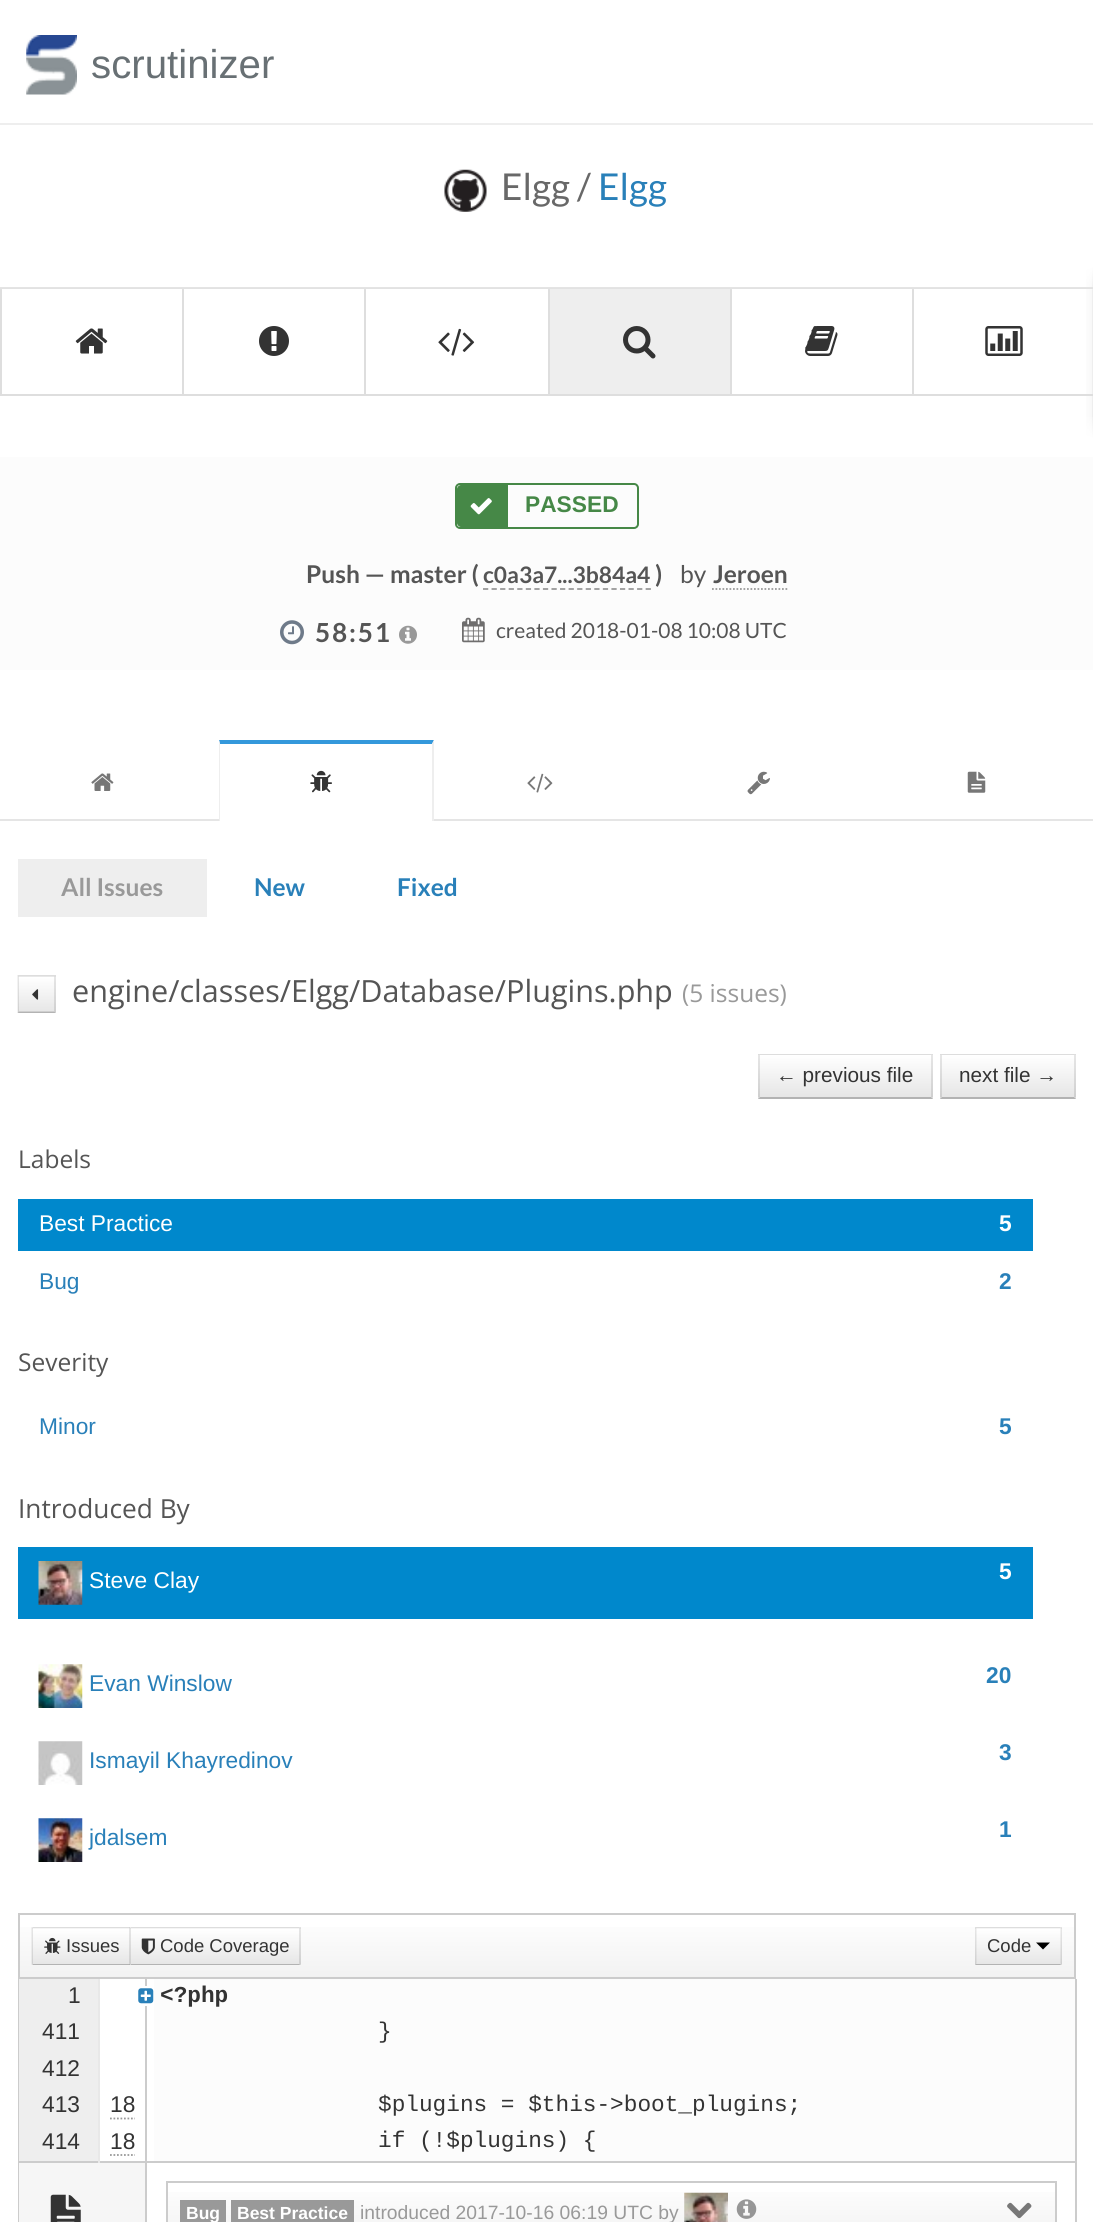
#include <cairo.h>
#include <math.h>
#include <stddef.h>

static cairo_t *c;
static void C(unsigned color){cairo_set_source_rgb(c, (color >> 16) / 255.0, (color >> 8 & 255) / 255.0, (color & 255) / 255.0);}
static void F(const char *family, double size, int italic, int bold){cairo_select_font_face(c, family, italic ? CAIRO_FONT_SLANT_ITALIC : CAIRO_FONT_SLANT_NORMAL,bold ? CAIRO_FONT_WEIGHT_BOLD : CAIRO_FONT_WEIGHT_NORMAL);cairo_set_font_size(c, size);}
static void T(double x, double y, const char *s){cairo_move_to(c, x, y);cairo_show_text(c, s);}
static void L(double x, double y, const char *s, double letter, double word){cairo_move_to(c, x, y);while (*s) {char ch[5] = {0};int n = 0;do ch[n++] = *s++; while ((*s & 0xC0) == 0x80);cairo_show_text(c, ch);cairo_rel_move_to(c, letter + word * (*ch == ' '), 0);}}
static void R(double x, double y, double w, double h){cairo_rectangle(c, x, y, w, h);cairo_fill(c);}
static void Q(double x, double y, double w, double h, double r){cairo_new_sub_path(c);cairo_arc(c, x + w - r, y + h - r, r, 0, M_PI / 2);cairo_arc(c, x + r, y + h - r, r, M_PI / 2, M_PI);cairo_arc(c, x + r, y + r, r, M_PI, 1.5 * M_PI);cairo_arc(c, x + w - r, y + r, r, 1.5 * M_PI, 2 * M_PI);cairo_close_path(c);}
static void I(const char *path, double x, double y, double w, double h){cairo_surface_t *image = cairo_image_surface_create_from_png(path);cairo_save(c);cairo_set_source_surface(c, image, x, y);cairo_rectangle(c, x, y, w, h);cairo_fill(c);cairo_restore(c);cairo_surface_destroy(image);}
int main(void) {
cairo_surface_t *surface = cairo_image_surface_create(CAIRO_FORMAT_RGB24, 1093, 2222);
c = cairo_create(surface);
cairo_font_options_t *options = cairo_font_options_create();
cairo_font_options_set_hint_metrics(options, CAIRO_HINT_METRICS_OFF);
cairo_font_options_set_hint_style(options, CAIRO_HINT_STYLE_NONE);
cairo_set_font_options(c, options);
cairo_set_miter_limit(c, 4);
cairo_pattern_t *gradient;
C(0xffffff);
cairo_paint(c);
C(0xeeeeee);
R(0,123,1093,2);
I("1.png",26,35,51,60);
F("Liberation Sans",40.25,0,0);
C(0x687074);
T(91,78,"scrutinizer");
I("2.png",444,169,43,43);
F("Lato",37,0,0);
C(0x686868);
T(501,200,"Elgg /");
C(0x2980b9);
T(598,200,"Elgg");
gradient = cairo_pattern_create_linear(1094,353,0,353);
cairo_pattern_add_color_stop_rgba(gradient,0,0.965,0.965,0.965,1);
cairo_pattern_add_color_stop_rgba(gradient,.01,1,1,1,1);
cairo_set_source(c,gradient);
cairo_pattern_destroy(gradient);
R(1086,266,6,173);
C(0xeeeeee);
R(1092,266,1,173);
C(0xdedede);
R(0,287,1093,2);
R(0,394,1093,2);
R(0,287,2,109);
R(182,287,2,109);
R(364,287,2,109);
R(548,287,2,109);
R(730,287,2,109);
R(912,287,2,109);
gradient = cairo_pattern_create_linear(547,266,547,292);
cairo_pattern_add_color_stop_rgba(gradient,0,1,1,1,1);
cairo_pattern_add_color_stop_rgba(gradient,1,1,1,1,0);
cairo_set_source(c,gradient);
cairo_pattern_destroy(gradient);
R(0,266,1093,24);
I("3.png",75,328,33,26);
I("4.png",259,326,30,30);
I("5.png",438,328,37,28);
C(0xeeeeee);
R(550,289,180,105);
I("6.png",623,326,33,33);
I("7.png",805,326,33,30);
I("8.png",985,326,38,30);
gradient = cairo_pattern_create_linear(547,439,547,413);
cairo_pattern_add_color_stop_rgba(gradient,0,1,1,1,1);
cairo_pattern_add_color_stop_rgba(gradient,1,1,1,1,0);
cairo_set_source(c,gradient);
cairo_pattern_destroy(gradient);
R(1086,417,7,22);
C(0xfcfcfc);
R(0,457,1093,213);
Q(456,484,182,44,4);
C(0x468847);
cairo_stroke(c);
cairo_new_path(c);
cairo_move_to(c,461,485);
cairo_line_to(c,508,485);
cairo_line_to(c,508,527);
cairo_line_to(c,461,527);
cairo_curve_to(c,459,527,457,525,457,523);
cairo_line_to(c,457,489);
cairo_curve_to(c,457,487,459,485,461,485);
cairo_close_path(c);
cairo_fill(c);
I("9.png",470,498,22,17);
F("Liberation Sans",22.75,0,1);
T(525,512,"PASSED");
F("Lato",24.5,0,1);
C(0x555555);
T(306,583,"Push — master (");
F("Lato",22.75,0,1);
T(483,583,"c0a3a7...3b84a4");
cairo_new_path(c);
cairo_move_to(c,483,589);
cairo_line_to(c,651,589);
C(0x999999);
cairo_set_line_width(c,1.8);
cairo_set_dash(c,(double[]){5.25,3.31},2,0);
cairo_stroke(c);
F("Lato",24.5,0,1);
C(0x555555);
T(655,583,")");
F("Lato",24.5,0,0);
T(680,583,"by");
F("Lato",24.5,0,1);
T(713,583,"Jeroen");
cairo_new_path(c);
cairo_move_to(c,712,589);
cairo_line_to(c,787.5,589);
C(0x999999);
cairo_set_dash(c,(double[]){1.75,1.75},2,0);
cairo_stroke(c);
I("10.png",280,620,24,25);
F("Lato",26.25,0,1);
C(0x555555);
L(315,642,"58:51",1.75,0);
I("11.png",399,625,18,19);
I("12.png",462,617,23,26);
F("Lato",21,0,0);
T(496,638,"created 2018-01-08 10:08 UTC");
C(0xe5e5e5);
R(0,819,1093,2);
I("13.png",91,773,23,18);
C(0xffffff);
R(219,819,215,2);
C(0x3498db);
cairo_new_path(c);
cairo_move_to(c,219,740);
cairo_line_to(c,434,740);
cairo_line_to(c,432,744);
cairo_line_to(c,220,744);
cairo_close_path(c);
cairo_fill(c);
C(0xeeeeee);
cairo_new_path(c);
cairo_move_to(c,434,740);
cairo_line_to(c,434,821);
cairo_line_to(c,432,821);
cairo_line_to(c,432,744);
cairo_close_path(c);
cairo_fill(c);
cairo_new_path(c);
cairo_move_to(c,219,821);
cairo_line_to(c,219,740);
cairo_line_to(c,220,744);
cairo_line_to(c,220,821);
cairo_close_path(c);
cairo_fill(c);
I("14.png",310,770,22,23);
I("15.png",527,773,26,20);
I("16.png",747,771,23,24);
I("17.png",967,771,19,22);
R(18,859,189,58);
F("Lato",24.5,0,1);
C(0x999999);
T(61,896,"All Issues");
C(0x2980b9);
T(254,896,"New");
T(397,896,"Fixed");
C(0xf5f5f5);
R(18,975,38,38);
gradient = cairo_pattern_create_linear(37,977,37,1012);
cairo_pattern_add_color_stop_rgba(gradient,0,1,1,1,1);
cairo_pattern_add_color_stop_rgba(gradient,1,0.902,0.902,0.902,1);
cairo_set_source(c,gradient);
cairo_pattern_destroy(gradient);
R(18,977,38,35);
C(0xdddddd);
cairo_new_path(c);
cairo_move_to(c,17.5,975);
cairo_line_to(c,56,975);
cairo_line_to(c,54,976.5);
cairo_line_to(c,19,976.5);
cairo_close_path(c);
cairo_fill(c);
cairo_set_source_rgba(c,0,0,0,0.1);
cairo_new_path(c);
cairo_move_to(c,56,975);
cairo_line_to(c,56,1013);
cairo_line_to(c,54,1011.5);
cairo_line_to(c,54,976.5);
cairo_close_path(c);
cairo_fill(c);
C(0xb3b3b3);
cairo_new_path(c);
cairo_move_to(c,56,1013);
cairo_line_to(c,17.5,1013);
cairo_line_to(c,19,1011.5);
cairo_line_to(c,54,1011.5);
cairo_close_path(c);
cairo_fill(c);
cairo_set_source_rgba(c,0,0,0,0.1);
cairo_new_path(c);
cairo_move_to(c,17.5,1013);
cairo_line_to(c,17.5,975);
cairo_line_to(c,19,976.5);
cairo_line_to(c,19,1011.5);
cairo_close_path(c);
cairo_fill(c);
I("18.png",32,989,7,11);
F("Open Sans",30.6,0,0);
C(0x555555);
T(72,1002,"engine/classes/Elgg/Database/Plugins.php");
F("Open Sans",24.5,0,0);
C(0x999999);
T(682,1002,"(5 issues)");
C(0xf5f5f5);
R(758,1054,175,45);
gradient = cairo_pattern_create_linear(845,1055,845,1097);
cairo_pattern_add_color_stop_rgba(gradient,0,1,1,1,1);
cairo_pattern_add_color_stop_rgba(gradient,1,0.902,0.902,0.902,1);
cairo_set_source(c,gradient);
cairo_pattern_destroy(gradient);
R(758,1055,175,42);
C(0xdddddd);
cairo_new_path(c);
cairo_move_to(c,758,1054);
cairo_line_to(c,933,1054);
cairo_line_to(c,931,1055);
cairo_line_to(c,760,1055);
cairo_close_path(c);
cairo_fill(c);
cairo_set_source_rgba(c,0,0,0,0.1);
cairo_new_path(c);
cairo_move_to(c,933,1054);
cairo_line_to(c,933,1099);
cairo_line_to(c,931,1097);
cairo_line_to(c,931,1055);
cairo_close_path(c);
cairo_fill(c);
C(0xb3b3b3);
cairo_new_path(c);
cairo_move_to(c,933,1099);
cairo_line_to(c,758,1099);
cairo_line_to(c,760,1097);
cairo_line_to(c,931,1097);
cairo_close_path(c);
cairo_fill(c);
cairo_set_source_rgba(c,0,0,0,0.1);
cairo_new_path(c);
cairo_move_to(c,758,1099);
cairo_line_to(c,758,1054);
cairo_line_to(c,760,1055);
cairo_line_to(c,760,1097);
cairo_close_path(c);
cairo_fill(c);
F("Liberation Sans",20.75,0,0);
C(0x333333);
T(776,1082,"← previous file");
C(0xf5f5f5);
R(940,1054,136,45);
gradient = cairo_pattern_create_linear(1008,1055,1008,1097);
cairo_pattern_add_color_stop_rgba(gradient,0,1,1,1,1);
cairo_pattern_add_color_stop_rgba(gradient,1,0.902,0.902,0.902,1);
cairo_set_source(c,gradient);
cairo_pattern_destroy(gradient);
R(940,1055,136,42);
C(0xdddddd);
cairo_new_path(c);
cairo_move_to(c,940,1054);
cairo_line_to(c,1076,1054);
cairo_line_to(c,1074,1055);
cairo_line_to(c,942,1055);
cairo_close_path(c);
cairo_fill(c);
cairo_set_source_rgba(c,0,0,0,0.1);
cairo_new_path(c);
cairo_move_to(c,1076,1054);
cairo_line_to(c,1076,1099);
cairo_line_to(c,1074,1097);
cairo_line_to(c,1074,1055);
cairo_close_path(c);
cairo_fill(c);
C(0xb3b3b3);
cairo_new_path(c);
cairo_move_to(c,1076,1099);
cairo_line_to(c,940,1099);
cairo_line_to(c,942,1097);
cairo_line_to(c,1074,1097);
cairo_close_path(c);
cairo_fill(c);
cairo_set_source_rgba(c,0,0,0,0.1);
cairo_new_path(c);
cairo_move_to(c,940,1099);
cairo_line_to(c,940,1054);
cairo_line_to(c,942,1055);
cairo_line_to(c,942,1097);
cairo_close_path(c);
cairo_fill(c);
C(0x333333);
T(959,1082,"next file →");
F("Open Sans",24.5,0,0);
C(0x555555);
T(18,1168,"Labels");
C(0x0088cc);
R(18,1199,1015,52);
F("Liberation Sans",22.75,0,0);
C(0xffffff);
T(39,1231,"Best Practice");
F("Liberation Sans",22.75,0,1);
T(999,1231,"5");
F("Liberation Sans",22.75,0,0);
C(0x2980b9);
T(39,1289,"Bug");
F("Liberation Sans",22.75,0,1);
T(999,1289,"2");
F("Open Sans",24.5,0,0);
C(0x555555);
T(18,1371,"Severity");
F("Liberation Sans",22.75,0,0);
C(0x2980b9);
T(39,1434,"Minor");
F("Liberation Sans",22.75,0,1);
T(999,1434,"5");
F("Open Sans",26.25,0,0);
C(0x555555);
T(18,1518,"Introduced By");
C(0x0088cc);
R(18,1547,1015,72);
I("19.png",38,1561,45,44);
F("Liberation Sans",22.75,0,0);
C(0xffffff);
T(89,1588,"Steve Clay");
F("Liberation Sans",22.75,0,1);
T(999,1579,"5");
I("20.png",38,1664,45,44);
F("Liberation Sans",22.75,0,0);
C(0x2980b9);
T(89,1691,"Evan Winslow");
F("Liberation Sans",22.75,0,1);
T(986,1683,"20");
I("21.png",38,1741,45,44);
F("Liberation Sans",22.75,0,0);
T(89,1768,"Ismayil Khayredinov");
F("Liberation Sans",22.75,0,1);
T(999,1760,"3");
I("22.png",38,1818,45,44);
F("Liberation Sans",22.75,0,0);
T(89,1845,"jdalsem");
F("Liberation Sans",22.75,0,1);
T(999,1837,"1");
gradient = cairo_pattern_create_linear(547,1915,547,1978);
cairo_pattern_add_color_stop_rgba(gradient,0,1,1,1,1);
cairo_pattern_add_color_stop_rgba(gradient,1,0.949,0.949,0.949,1);
cairo_set_source(c,gradient);
cairo_pattern_destroy(gradient);
R(20,1927,1054,50);
cairo_rectangle(c,19,1914,1056,64);
C(0xcccccc);
cairo_set_line_width(c,2);
cairo_set_dash(c,NULL,0,0);
cairo_stroke(c);
C(0xf5f5f5);
R(32,1927,98,24);
gradient = cairo_pattern_create_linear(81,1929,81,1964);
cairo_pattern_add_color_stop_rgba(gradient,0,1,1,1,1);
cairo_pattern_add_color_stop_rgba(gradient,1,0.902,0.902,0.902,1);
cairo_set_source(c,gradient);
cairo_pattern_destroy(gradient);
R(32,1929,98,35);
C(0xdddddd);
cairo_new_path(c);
cairo_move_to(c,32,1927);
cairo_line_to(c,131,1927);
cairo_line_to(c,130,1928);
cairo_line_to(c,33,1928);
cairo_close_path(c);
cairo_fill(c);
cairo_set_source_rgba(c,0,0,0,0.1);
cairo_new_path(c);
cairo_move_to(c,131,1927);
cairo_line_to(c,131,1965);
cairo_line_to(c,129.5,1963.5);
cairo_line_to(c,129.5,1928.5);
cairo_close_path(c);
cairo_fill(c);
C(0xb3b3b3);
cairo_new_path(c);
cairo_move_to(c,131,1965);
cairo_line_to(c,32,1965);
cairo_line_to(c,33,1964);
cairo_line_to(c,130,1964);
cairo_close_path(c);
cairo_fill(c);
cairo_set_source_rgba(c,0,0,0,0.1);
cairo_new_path(c);
cairo_move_to(c,31.5,1965);
cairo_line_to(c,31.5,1927);
cairo_line_to(c,33,1928.5);
cairo_line_to(c,33,1963.5);
cairo_close_path(c);
cairo_fill(c);
I("23.png",44,1937,17,17);
F("Liberation Sans",18.5,0,0);
C(0x333333);
T(66,1952,"Issues");
C(0xf5f5f5);
R(130,1927,171,38);
gradient = cairo_pattern_create_linear(215,1929,215,1964);
cairo_pattern_add_color_stop_rgba(gradient,0,1,1,1,1);
cairo_pattern_add_color_stop_rgba(gradient,1,0.902,0.902,0.902,1);
cairo_set_source(c,gradient);
cairo_pattern_destroy(gradient);
R(130,1929,171,35);
C(0xdddddd);
cairo_new_path(c);
cairo_move_to(c,130,1927);
cairo_line_to(c,301,1927);
cairo_line_to(c,299,1928);
cairo_line_to(c,131,1928);
cairo_close_path(c);
cairo_fill(c);
cairo_set_source_rgba(c,0,0,0,0.1);
cairo_new_path(c);
cairo_move_to(c,301,1927);
cairo_line_to(c,301,1965);
cairo_line_to(c,299,1963.5);
cairo_line_to(c,299,1928.5);
cairo_close_path(c);
cairo_fill(c);
C(0xb3b3b3);
cairo_new_path(c);
cairo_move_to(c,301,1965);
cairo_line_to(c,130,1965);
cairo_line_to(c,131,1964);
cairo_line_to(c,299,1964);
cairo_close_path(c);
cairo_fill(c);
cairo_set_source_rgba(c,0,0,0,0.1);
cairo_new_path(c);
cairo_move_to(c,129.5,1965);
cairo_line_to(c,129.5,1927);
cairo_line_to(c,131,1928.5);
cairo_line_to(c,131,1963.5);
cairo_close_path(c);
cairo_fill(c);
I("24.png",141,1938,14,17);
C(0x333333);
T(160,1952,"Code Coverage");
C(0xf5f5f5);
R(975,1927,87,24);
gradient = cairo_pattern_create_linear(1019,1929,1019,1964);
cairo_pattern_add_color_stop_rgba(gradient,0,1,1,1,1);
cairo_pattern_add_color_stop_rgba(gradient,1,0.902,0.902,0.902,1);
cairo_set_source(c,gradient);
cairo_pattern_destroy(gradient);
R(975,1929,87,35);
C(0xdddddd);
cairo_new_path(c);
cairo_move_to(c,975,1927);
cairo_line_to(c,1062,1927);
cairo_line_to(c,1060,1928);
cairo_line_to(c,976,1928);
cairo_close_path(c);
cairo_fill(c);
cairo_set_source_rgba(c,0,0,0,0.1);
cairo_new_path(c);
cairo_move_to(c,1062,1927);
cairo_line_to(c,1062,1965);
cairo_line_to(c,1060.5,1963.5);
cairo_line_to(c,1060.5,1928.5);
cairo_close_path(c);
cairo_fill(c);
C(0xb3b3b3);
cairo_new_path(c);
cairo_move_to(c,1062,1965);
cairo_line_to(c,975,1965);
cairo_line_to(c,976,1964);
cairo_line_to(c,1060,1964);
cairo_close_path(c);
cairo_fill(c);
cairo_set_source_rgba(c,0,0,0,0.1);
cairo_new_path(c);
cairo_move_to(c,975,1965);
cairo_line_to(c,975,1927);
cairo_line_to(c,976.5,1928.5);
cairo_line_to(c,976.5,1963.5);
cairo_close_path(c);
cairo_fill(c);
C(0x333333);
T(987,1952,"Code");
C(0x000000);
cairo_new_path(c);
cairo_move_to(c,1036,1942.5);
cairo_line_to(c,1050,1942.5);
cairo_line_to(c,1043,1949.5);
cairo_close_path(c);
cairo_fill(c);
C(0xcccccc);
R(1075,1979,2,243);
R(18,1979,1,243);
C(0xeeeeee);
R(19,1979,79,182);
F("Liberation Sans",22.75,0,0);
C(0x333333);
T(68,2003,"1");
C(0xfcfcfc);
R(154,1979,921,182);
C(0xcccccc);
R(145,2161,930,2);
R(145,2161,2,61);
R(19,2161,128,2);
R(145,1979,2,184);
C(0xffffff);
R(145,1986,2,20);
I("25.png",138,1988,16,16);
F("Liberation Mono",22.75,0,1);
C(0x333333);
T(160,2002,"<?php");
F("Liberation Sans",22.75,0,0);
T(42,2039,"411");
F("Liberation Mono",22.75,0,0);
T(378,2038,"}");
F("Liberation Sans",22.75,0,0);
T(42,2076,"412");
T(42,2112,"413");
T(110,2112,"18");
cairo_new_path(c);
cairo_move_to(c,110,2118.5);
cairo_line_to(c,135,2118.5);
C(0x999999);
cairo_set_line_width(c,1.8);
cairo_set_dash(c,(double[]){1.75,1.75},2,0);
cairo_stroke(c);
F("Liberation Mono",22.75,0,0);
C(0x333333);
T(378,2111,"$plugins = $this->boot_plugins;");
F("Liberation Sans",22.75,0,0);
T(42,2149,"414");
C(0xe8e8e8);
R(98,1979,2,184);
C(0x333333);
T(110,2149,"18");
cairo_new_path(c);
cairo_move_to(c,110,2155);
cairo_line_to(c,135,2155);
C(0x999999);
cairo_stroke(c);
F("Liberation Mono",22.75,0,0);
C(0x333333);
T(378,2147,"if (!$plugins) {");
C(0xf6f6f6);
R(19,2163,126,59);
I("26.png",50,2194,31,28);
C(0xcccccc);
R(1055,2181,2,41);
R(166,2181,2,41);
gradient = cairo_pattern_create_linear(612,2181,612,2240);
cairo_pattern_add_color_stop_rgba(gradient,0,1,1,1,1);
cairo_pattern_add_color_stop_rgba(gradient,1,0.949,0.949,0.949,1);
cairo_set_source(c,gradient);
cairo_pattern_destroy(gradient);
R(168,2192,887,30);
C(0xcccccc);
R(168,2181,887,2);
C(0x999999);
R(180,2200,46,22);
F("Liberation Sans",17.5,0,1);
C(0xffffff);
T(186,2219,"Bug");
C(0x999999);
R(231,2200,123,22);
C(0xffffff);
T(237,2219,"Best Practice");
F("Liberation Sans",19.3,0,0);
C(0x999999);
T(360,2219,"introduced 2017-10-16 06:19 UTC by");
I("27.png",684,2192,44,30);
I("28.png",736,2199,21,20);
I("29.png",1007,2202,25,17);
cairo_surface_write_to_png(surface, "o.png");
cairo_font_options_destroy(options);
cairo_destroy(c);
cairo_surface_destroy(surface);
return 0;
}
